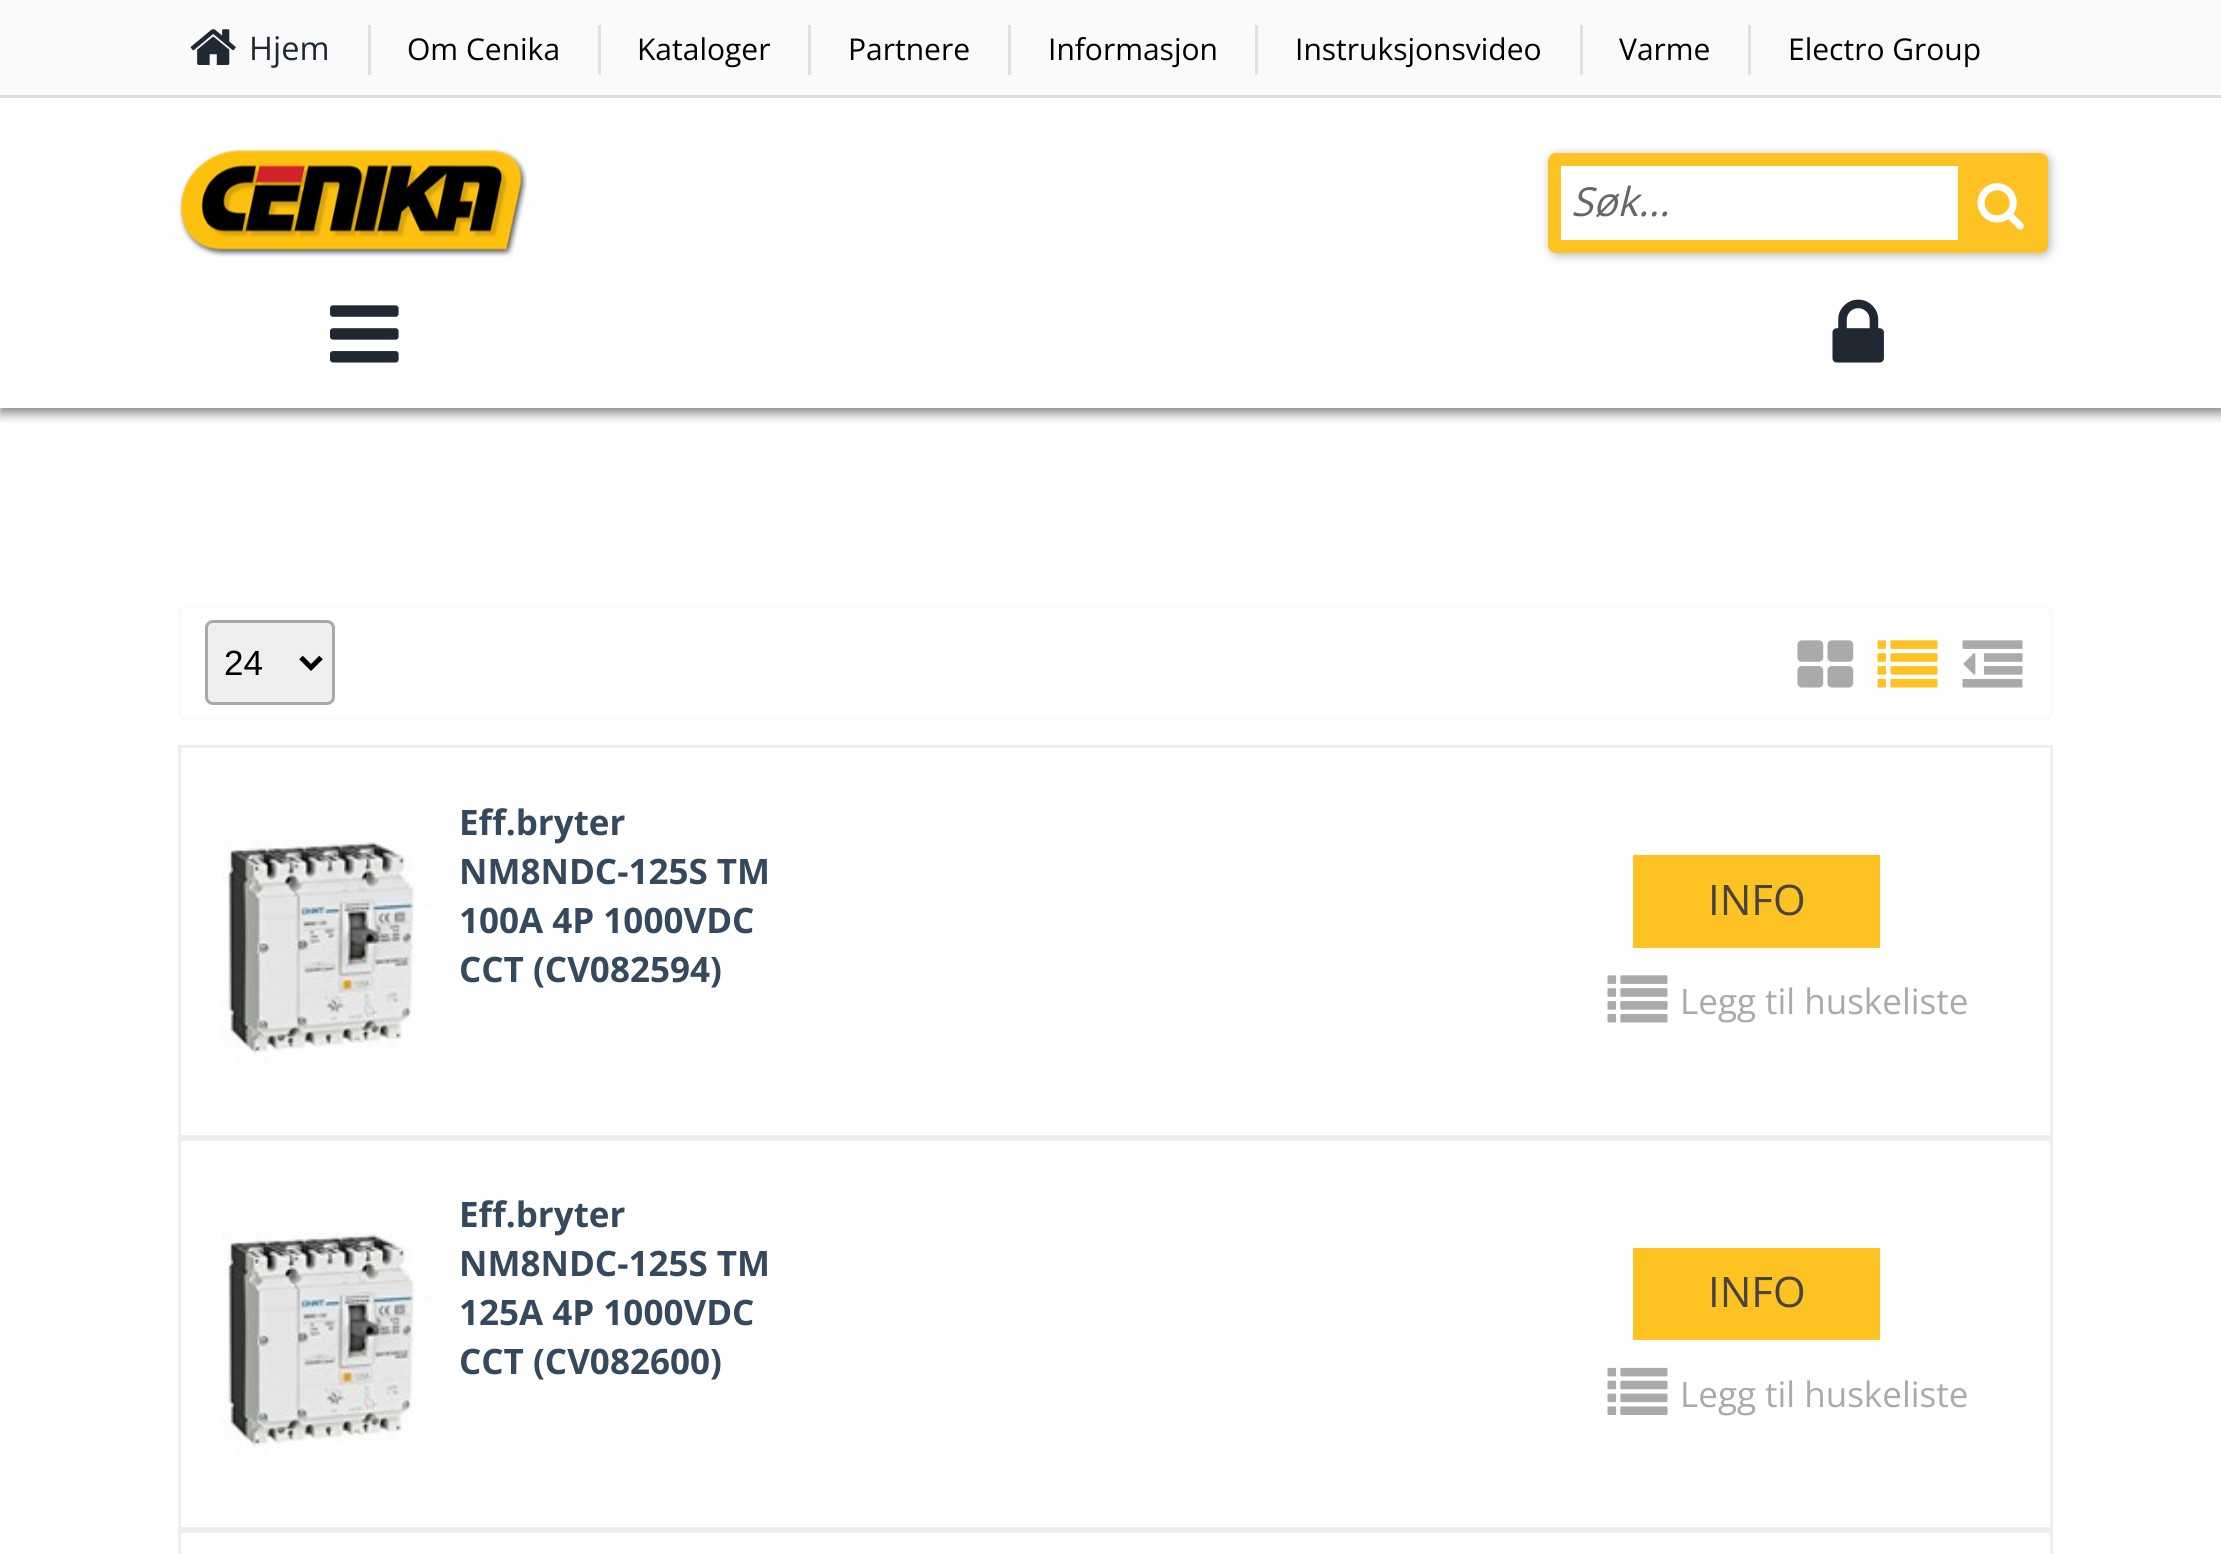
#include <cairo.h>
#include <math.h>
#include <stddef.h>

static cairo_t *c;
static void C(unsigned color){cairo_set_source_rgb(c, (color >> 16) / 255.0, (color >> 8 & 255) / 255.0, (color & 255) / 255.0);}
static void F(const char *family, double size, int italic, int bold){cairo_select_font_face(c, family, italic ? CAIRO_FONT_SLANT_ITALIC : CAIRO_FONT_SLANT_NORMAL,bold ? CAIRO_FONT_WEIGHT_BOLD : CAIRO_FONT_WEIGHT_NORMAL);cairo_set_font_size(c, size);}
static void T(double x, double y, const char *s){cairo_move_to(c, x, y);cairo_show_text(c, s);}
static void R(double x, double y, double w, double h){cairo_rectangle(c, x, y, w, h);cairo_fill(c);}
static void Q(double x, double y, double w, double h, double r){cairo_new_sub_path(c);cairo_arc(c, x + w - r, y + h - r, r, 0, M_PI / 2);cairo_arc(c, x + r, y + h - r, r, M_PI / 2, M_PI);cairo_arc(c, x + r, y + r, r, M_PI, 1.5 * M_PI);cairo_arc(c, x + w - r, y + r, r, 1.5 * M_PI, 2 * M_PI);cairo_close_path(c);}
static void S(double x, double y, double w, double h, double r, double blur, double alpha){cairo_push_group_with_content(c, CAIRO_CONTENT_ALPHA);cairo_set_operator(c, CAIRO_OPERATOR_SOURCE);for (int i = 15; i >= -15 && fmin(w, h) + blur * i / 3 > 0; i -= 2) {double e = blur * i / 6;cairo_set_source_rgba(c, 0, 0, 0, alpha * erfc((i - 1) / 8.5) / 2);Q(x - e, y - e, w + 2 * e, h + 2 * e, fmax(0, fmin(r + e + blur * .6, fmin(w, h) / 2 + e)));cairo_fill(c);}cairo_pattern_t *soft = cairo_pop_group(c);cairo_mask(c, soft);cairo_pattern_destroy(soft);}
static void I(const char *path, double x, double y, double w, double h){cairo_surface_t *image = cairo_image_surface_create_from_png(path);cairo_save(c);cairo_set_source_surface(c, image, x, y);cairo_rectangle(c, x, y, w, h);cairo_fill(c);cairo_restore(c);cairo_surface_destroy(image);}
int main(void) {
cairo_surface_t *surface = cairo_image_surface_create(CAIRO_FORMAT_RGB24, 2221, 1554);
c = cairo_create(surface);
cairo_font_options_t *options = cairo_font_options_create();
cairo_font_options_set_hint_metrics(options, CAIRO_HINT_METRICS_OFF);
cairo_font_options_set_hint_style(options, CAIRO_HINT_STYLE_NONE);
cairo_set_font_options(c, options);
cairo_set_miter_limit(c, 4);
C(0xffffff);
cairo_paint(c);
cairo_save(c);
cairo_rectangle(c,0,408,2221,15);
cairo_clip(c);
C(0x000000);
S(0,5,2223,408,0,6,.5);
cairo_restore(c);
C(0xfafafa);
R(0,0,2221,95);
C(0xdddddd);
R(0,95,2221,3);
C(0xe0e0e0);
R(368,25,3,50);
I("1.png",190,29,46,36);
F("Open Sans",32.5,0,0);
C(0x1f2833);
T(249,60,"Hjem");
C(0xe0e0e0);
R(598,25,3,50);
F("Open Sans",30,0,0);
C(0x000000);
T(407,60,"Om Cenika");
C(0xe0e0e0);
R(808,25,3,50);
C(0x000000);
T(637,60,"Kataloger");
C(0xe0e0e0);
R(1008,25,3,50);
C(0x000000);
T(848,60,"Partnere");
C(0xe0e0e0);
R(1255,25,3,50);
C(0x000000);
T(1048,60,"Informasjon");
C(0xe0e0e0);
R(1580,25,3,50);
C(0x000000);
T(1295,60,"Instruksjonsvideo");
C(0xe0e0e0);
R(1748,25,3,50);
C(0x000000);
T(1619,60,"Varme");
T(1788,60,"Electro Group");
I("2.png",178,149,349,108);
C(0x000000);
S(1550,155,500,100,8,5,.3);
C(0xffffff);
Q(1554.5,159.5,487,87,1.5);
cairo_fill_preserve(c);
C(0xffc223);
cairo_set_line_width(c,13);
cairo_stroke(c);
F("Open Sans",40,1,0);
C(0x666666);
T(1571,216,"Søk...");
C(0xffc223);
R(1958,166,77,74);
I("3.png",1977,183,47,47);
C(0xffffff);
R(0,407,2221,1);
I("4.png",330,305,69,58);
I("5.png",1832,299,52,64);
Q(179.5,606.5,1872,112,6.5);
C(0xfafafa);
cairo_set_line_width(c,3);
cairo_stroke(c);
C(0xefefef);
Q(206.5,621.5,127,82,6.5);
cairo_fill_preserve(c);
C(0xa9a9a9);
cairo_stroke(c);
cairo_new_path(c);
cairo_move_to(c,301,657.5);
cairo_line_to(c,311,667.5);
cairo_line_to(c,321,657.5);
C(0x000000);
cairo_set_line_width(c,5);
cairo_stroke(c);
F("Liberation Sans",35,0,0);
T(224,675,"24");
I("6.png",1797,640,57,48);
I("7.png",1877,640,61,48);
I("8.png",1962,640,61,48);
cairo_rectangle(c,179.5,746.5,1872,390);
C(0xeeeeee);
cairo_set_line_width(c,3);
cairo_stroke(c);
I("9.png",222,839,210,225);
F("Open Sans",35,0,1);
C(0x34495e);
T(459,835,"Eff.bryter");
T(459,884,"NM8NDC-125S TM");
T(459,933,"100A 4P 1000VDC");
T(459,982,"CCT (CV082594)");
C(0xffc223);
R(1633,855,247,93);
F("Open Sans",42,0,0);
C(0x444444);
T(1708,915,"INFO");
I("10.png",1607,975,61,48);
F("Open Sans",35,0,0);
C(0xaaaaaa);
T(1680,1014,"Legg til huskeliste");
cairo_rectangle(c,179.5,1139.5,1872,389);
C(0xeeeeee);
cairo_stroke(c);
I("11.png",222,1232,210,223);
F("Open Sans",35,0,1);
C(0x34495e);
T(459,1227,"Eff.bryter");
T(459,1276,"NM8NDC-125S TM");
T(459,1325,"125A 4P 1000VDC");
T(459,1374,"CCT (CV082600)");
C(0xffc223);
R(1633,1248,247,92);
F("Open Sans",42,0,0);
C(0x444444);
T(1708,1307,"INFO");
I("12.png",1607,1367,61,48);
F("Open Sans",35,0,0);
C(0xaaaaaa);
T(1680,1407,"Legg til huskeliste");
cairo_rectangle(c,179.5,1531.5,1872,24);
C(0xeeeeee);
cairo_stroke(c);
cairo_surface_write_to_png(surface, "o.png");
cairo_font_options_destroy(options);
cairo_destroy(c);
cairo_surface_destroy(surface);
return 0;
}
